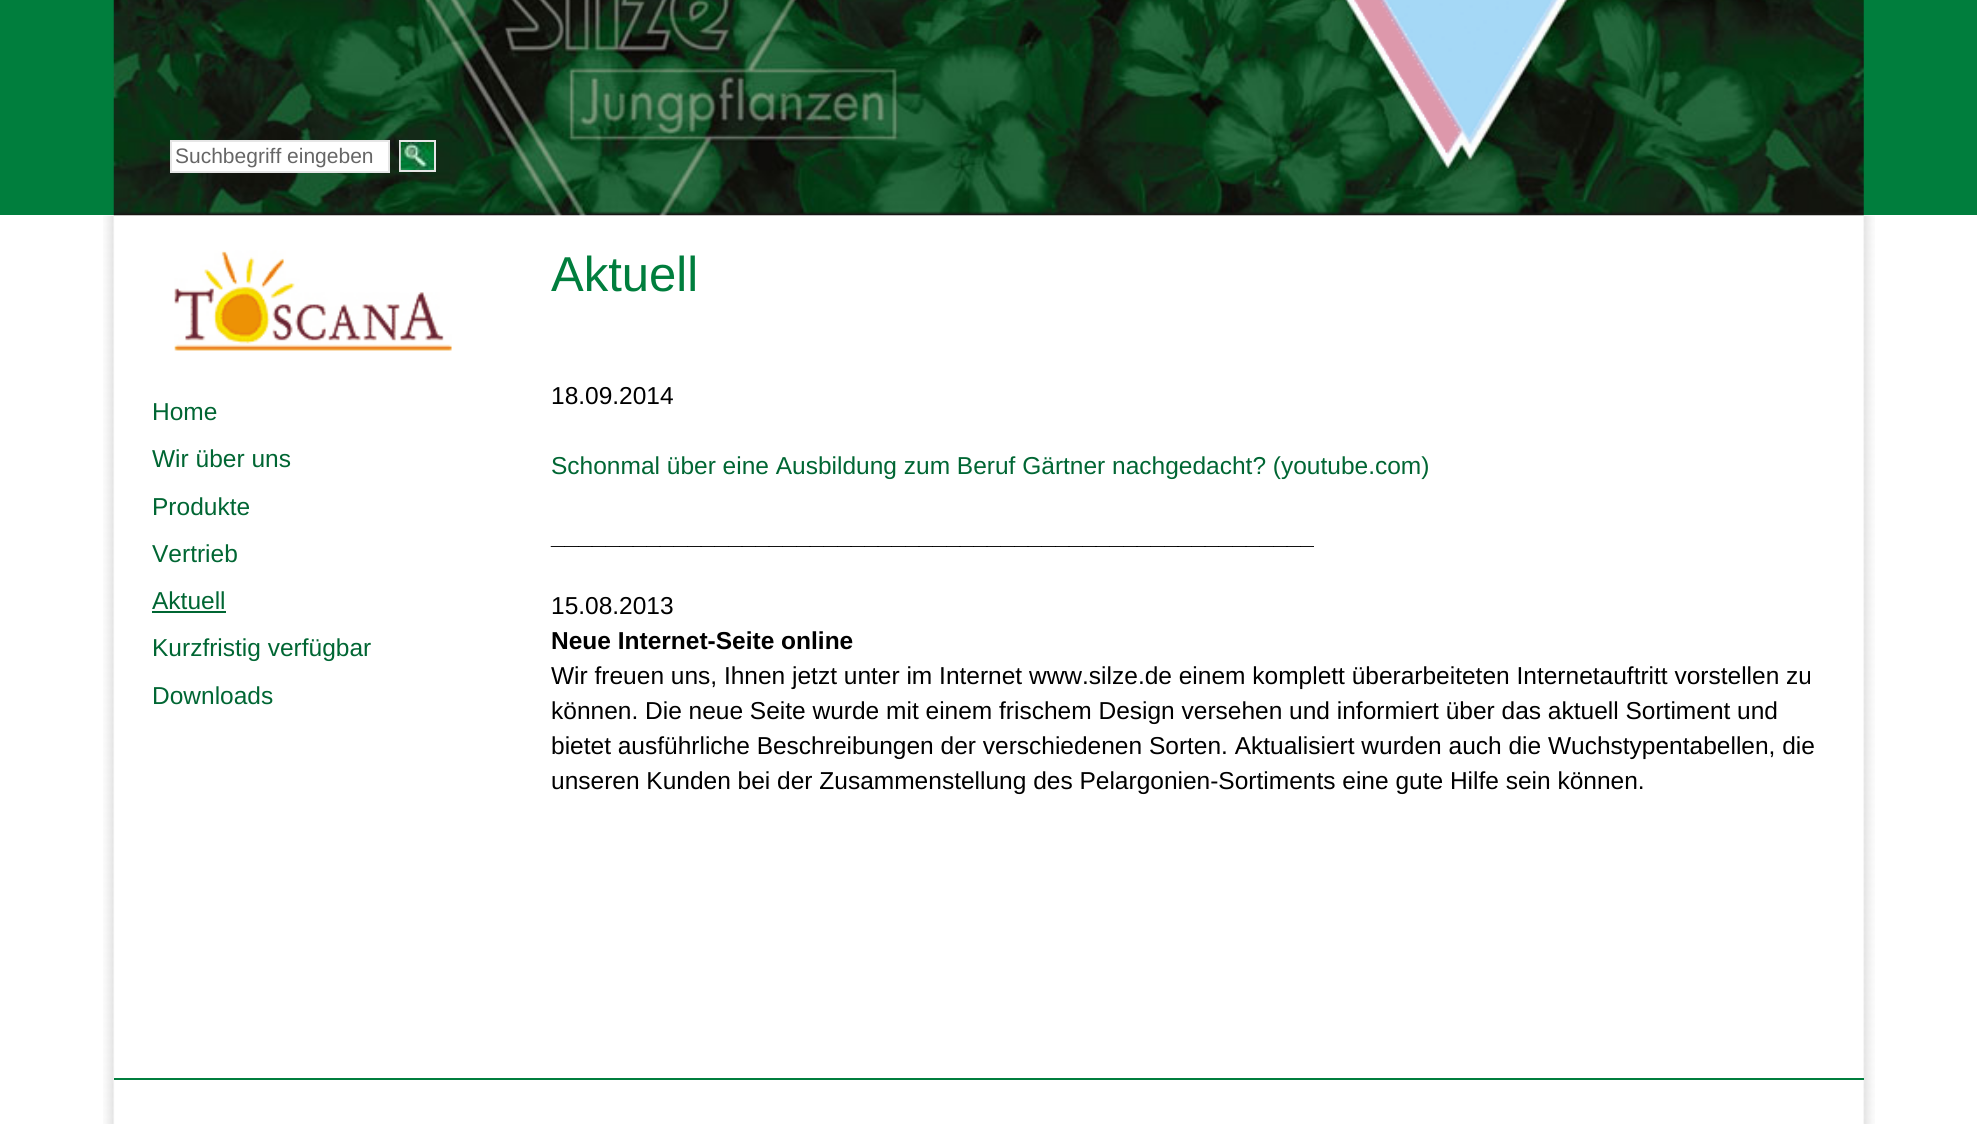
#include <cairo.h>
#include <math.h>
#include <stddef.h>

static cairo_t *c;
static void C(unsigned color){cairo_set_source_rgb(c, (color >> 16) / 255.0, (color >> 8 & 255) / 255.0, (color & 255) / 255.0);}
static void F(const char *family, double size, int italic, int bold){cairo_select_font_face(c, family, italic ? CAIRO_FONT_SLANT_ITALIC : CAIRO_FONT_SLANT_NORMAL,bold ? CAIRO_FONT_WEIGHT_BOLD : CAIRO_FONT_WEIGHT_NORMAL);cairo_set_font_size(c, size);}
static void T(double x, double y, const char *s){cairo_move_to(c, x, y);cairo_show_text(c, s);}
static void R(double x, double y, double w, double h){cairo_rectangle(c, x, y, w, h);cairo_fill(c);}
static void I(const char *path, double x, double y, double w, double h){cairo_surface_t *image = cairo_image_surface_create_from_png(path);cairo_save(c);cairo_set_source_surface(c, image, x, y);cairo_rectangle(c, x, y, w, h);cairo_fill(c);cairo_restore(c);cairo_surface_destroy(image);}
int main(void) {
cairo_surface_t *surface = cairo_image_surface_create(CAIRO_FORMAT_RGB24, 1977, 1124);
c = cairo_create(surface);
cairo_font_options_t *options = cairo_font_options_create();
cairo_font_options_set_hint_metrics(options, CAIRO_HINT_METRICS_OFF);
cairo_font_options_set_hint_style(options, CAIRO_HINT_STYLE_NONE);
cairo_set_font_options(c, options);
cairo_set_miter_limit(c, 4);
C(0xffffff);
cairo_paint(c);
C(0x007e3d);
R(0,0,1977,215);
I("1.png",113,0,1751,216);
I("2.png",1354,0,199,153);
C(0xffffff);
cairo_rectangle(c,171,141,218,31);
cairo_fill_preserve(c);
C(0xe6e6e6);
cairo_stroke(c);
F("Liberation Sans",21,0,0);
C(0x666666);
T(175,163,"Suchbegriff eingeben");
cairo_rectangle(c,400,141,35,30);
C(0xe6e6e6);
cairo_stroke(c);
I("3.png",400,142,34,28);
I("4.png",103,215,1772,909);
I("5.png",174,250,278,101);
F("Liberation Sans",24.5,0,0);
C(0x006633);
T(152,420,"Home");
T(152,467,"Wir über uns");
T(152,515,"Produkte");
T(152,562,"Vertrieb");
T(152,609,"Aktuell");
R(152,611,74,2);
T(152,656,"Kurzfristig verfügbar");
T(152,704,"Downloads");
F("Liberation Sans",49,0,0);
C(0x007e3d);
T(551,291,"Aktuell");
F("Liberation Sans",24.5,0,0);
C(0x000000);
T(551,404,"18.09.2014");
C(0x006633);
T(551,474,"Schonmal über eine Ausbildung zum Beruf Gärtner nachgedacht? (youtube.com)");
F("Liberation Sans",24.5,0,1);
C(0x000000);
T(551,544,"________________________________________________________");
F("Liberation Sans",24.5,0,0);
T(551,614,"15.08.2013");
F("Liberation Sans",24.5,0,1);
T(551,649,"Neue Internet-Seite online");
F("Liberation Sans",24.5,0,0);
T(551,684,"Wir freuen uns, Ihnen jetzt unter im Internet www.silze.de einem komplett überarbeiteten Internetauftritt vorstellen zu");
T(551,719,"können. Die neue Seite wurde mit einem frischem Design versehen und informiert über das aktuell Sortiment und");
T(551,754,"bietet ausführliche Beschreibungen der verschiedenen Sorten. Aktualisiert wurden auch die Wuchstypentabellen, die");
T(551,789,"unseren Kunden bei der Zusammenstellung des Pelargonien-Sortiments eine gute Hilfe sein können.");
C(0x007e3d);
R(114,1078,1750,2);
cairo_surface_write_to_png(surface, "o.png");
cairo_font_options_destroy(options);
cairo_destroy(c);
cairo_surface_destroy(surface);
return 0;
}
